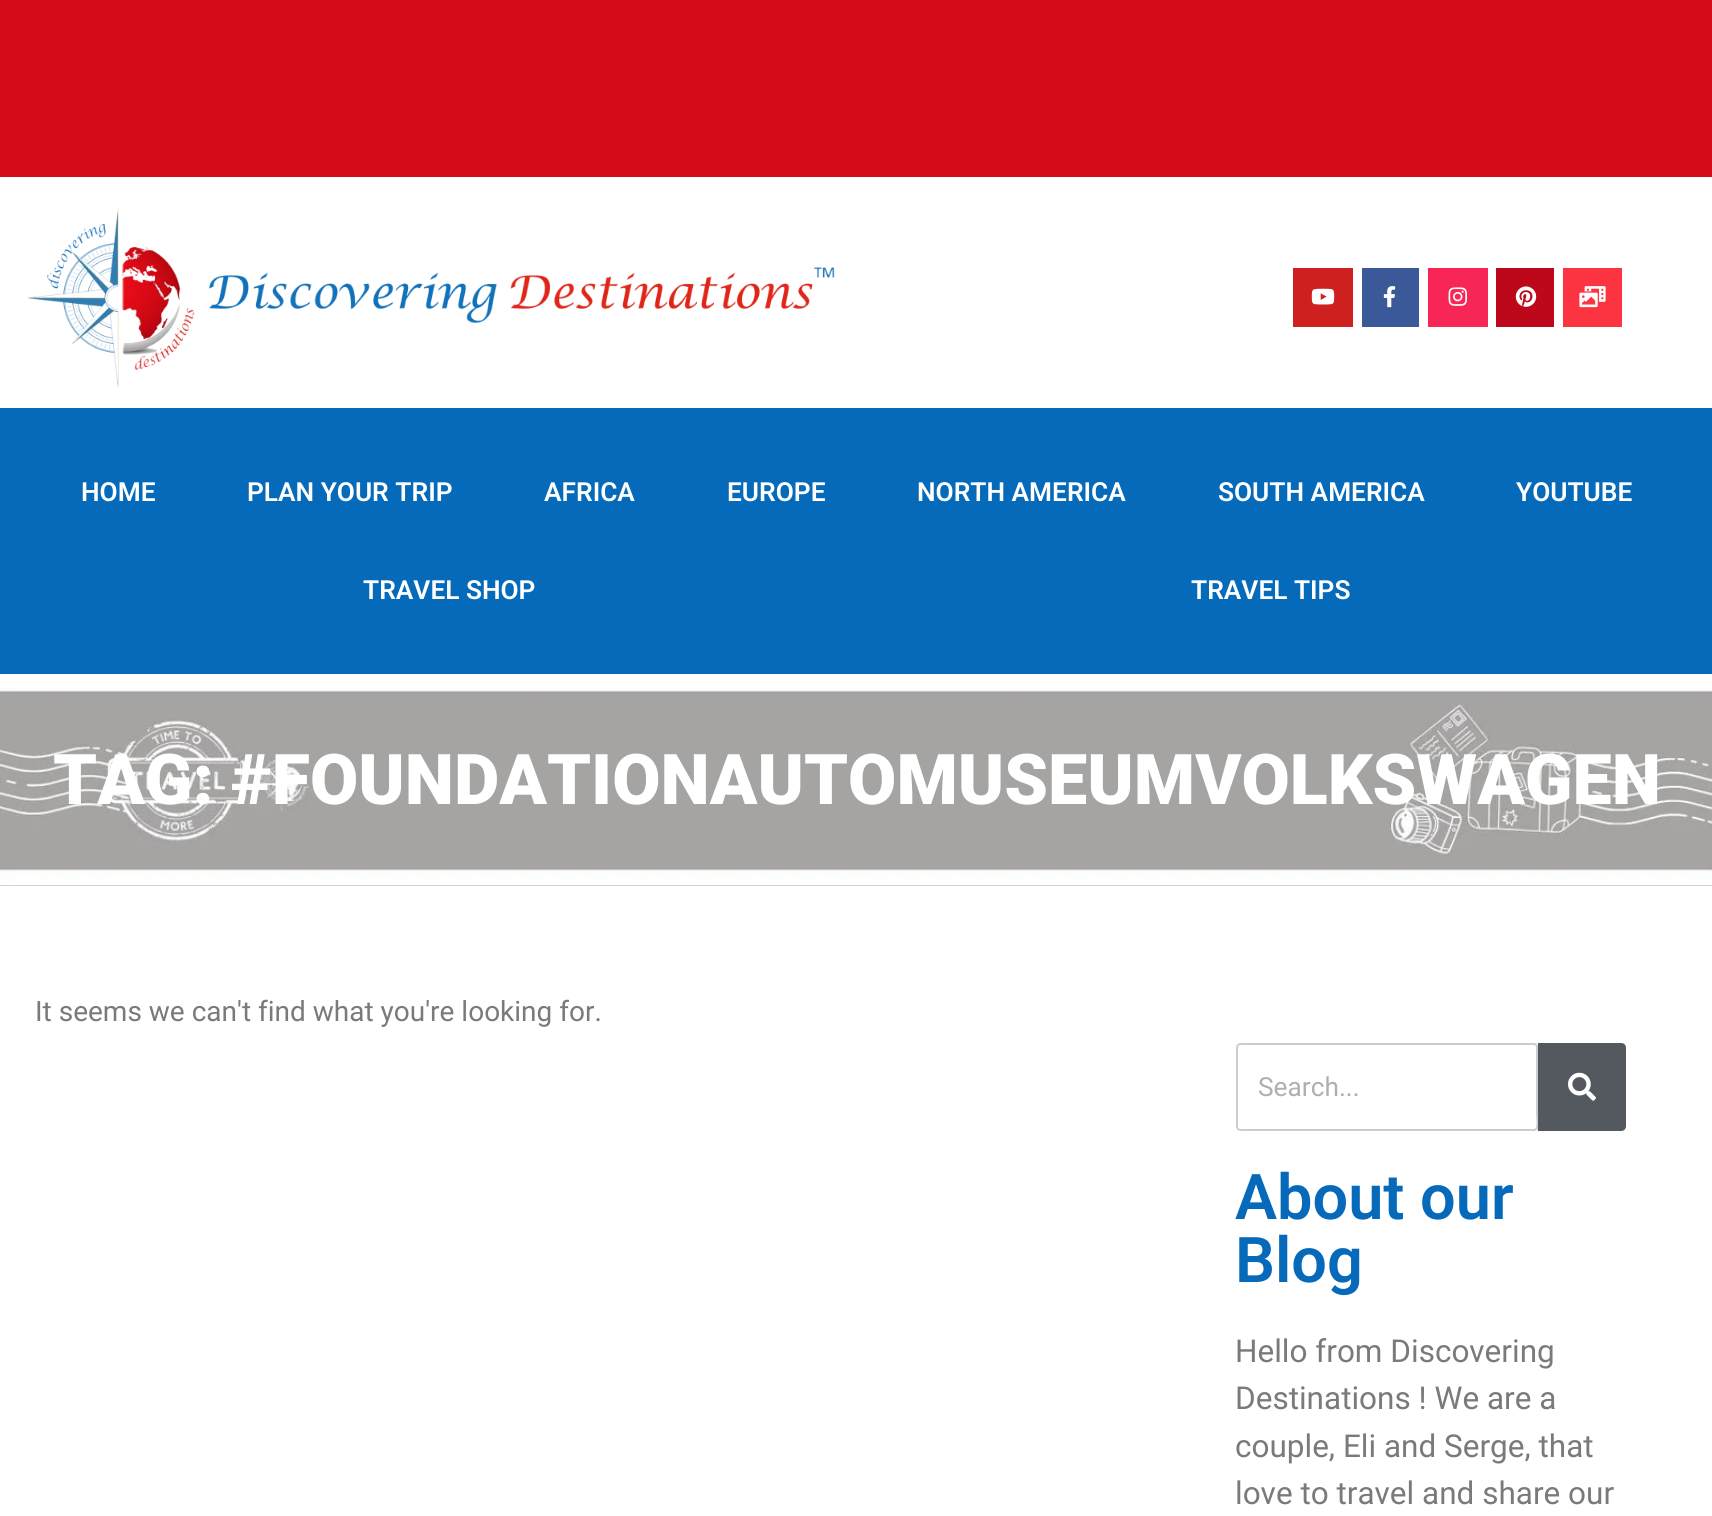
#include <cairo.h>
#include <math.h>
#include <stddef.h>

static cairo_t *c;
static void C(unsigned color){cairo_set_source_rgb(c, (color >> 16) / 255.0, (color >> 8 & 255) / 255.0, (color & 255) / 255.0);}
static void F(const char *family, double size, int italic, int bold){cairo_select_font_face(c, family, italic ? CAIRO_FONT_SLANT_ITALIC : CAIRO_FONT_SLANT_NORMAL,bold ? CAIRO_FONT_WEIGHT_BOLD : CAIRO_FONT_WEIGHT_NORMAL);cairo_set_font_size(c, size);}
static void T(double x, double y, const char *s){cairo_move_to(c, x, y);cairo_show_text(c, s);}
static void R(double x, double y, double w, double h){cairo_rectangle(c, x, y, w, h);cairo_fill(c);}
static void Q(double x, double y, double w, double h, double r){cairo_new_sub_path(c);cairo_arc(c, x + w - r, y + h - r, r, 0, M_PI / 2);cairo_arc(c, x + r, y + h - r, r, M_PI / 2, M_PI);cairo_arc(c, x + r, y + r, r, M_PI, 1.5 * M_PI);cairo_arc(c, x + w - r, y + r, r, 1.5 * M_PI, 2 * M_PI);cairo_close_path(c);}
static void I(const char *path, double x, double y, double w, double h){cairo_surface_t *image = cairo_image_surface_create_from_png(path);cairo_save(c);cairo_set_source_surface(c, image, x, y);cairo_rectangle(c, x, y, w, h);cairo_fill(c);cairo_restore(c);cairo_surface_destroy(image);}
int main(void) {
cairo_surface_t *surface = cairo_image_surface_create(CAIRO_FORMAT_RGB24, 1712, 1516);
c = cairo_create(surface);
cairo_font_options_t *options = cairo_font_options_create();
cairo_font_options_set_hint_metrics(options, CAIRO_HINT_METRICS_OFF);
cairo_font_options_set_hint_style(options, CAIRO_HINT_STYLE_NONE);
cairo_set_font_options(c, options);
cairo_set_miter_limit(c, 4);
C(0xffffff);
cairo_paint(c);
C(0xd70b17);
R(0,0,1712,177);
I("1.png",28,208,807,179);
C(0xcd201f);
R(1293,268,60,59);
I("2.png",1311,288,24,17);
C(0x3b5998);
R(1362,268,57,59);
I("3.png",1383,286,13,22);
C(0xf72657);
R(1428,268,60,59);
I("4.png",1448,287,19,19);
C(0xbd081c);
R(1496,268,58,59);
I("5.png",1515,286,22,21);
C(0xfc3340);
R(1563,268,59,59);
I("6.png",1579,286,27,22);
C(0x056aba);
R(0,408,1712,266);
F("Roboto SemiBold",26.25,0,0);
C(0xffffff);
T(81,501,"HOME");
T(247,501,"PLAN YOUR TRIP");
T(544,501,"AFRICA");
T(727,501,"EUROPE");
T(917,501,"NORTH AMERICA");
T(1218,501,"SOUTH AMERICA");
T(1516,501,"YOUTUBE");
T(363,599,"TRAVEL SHOP");
T(1191,599,"TRAVEL TIPS");
C(0xa4a4a3);
R(0,885,1712,1);
I("7.png",0,676,1712,210);
F("Roboto Black",70,0,0);
C(0xffffff);
T(53,804,"TAG: #FOUNDATIONAUTOMUSEUMVOLKSWAGEN");
F("Roboto",28,0,0);
C(0x7a7a7a);
T(35,1021,"It seems we can't find what you're looking for.");
C(0xf1f2f3);
Q(1236,1043,390,88,5);
cairo_fill(c);
C(0xffffff);
cairo_new_path(c);
cairo_move_to(c,1241,1043);
cairo_line_to(c,1534,1043);
cairo_curve_to(c,1536,1043,1538,1045,1538,1047);
cairo_line_to(c,1538,1127);
cairo_curve_to(c,1538,1129,1536,1131,1534,1131);
cairo_line_to(c,1241,1131);
cairo_curve_to(c,1238,1131,1236,1129,1236,1126);
cairo_line_to(c,1236,1048);
cairo_curve_to(c,1236,1045,1238,1043,1241,1043);
cairo_close_path(c);
cairo_fill(c);
C(0xcccccc);
cairo_set_fill_rule(c,CAIRO_FILL_RULE_EVEN_ODD);
cairo_new_path(c);
cairo_move_to(c,1241,1043);
cairo_curve_to(c,1238,1043,1236,1045,1236,1048);
cairo_line_to(c,1236,1126);
cairo_curve_to(c,1236,1129,1238,1131,1241,1131);
cairo_line_to(c,1534,1131);
cairo_curve_to(c,1536,1131,1538,1129,1538,1127);
cairo_line_to(c,1538,1047);
cairo_curve_to(c,1538,1045,1536,1043,1534,1043);
cairo_close_path(c);
cairo_move_to(c,1240,1045);
cairo_curve_to(c,1239,1045,1238,1046,1238,1047);
cairo_line_to(c,1238,1128);
cairo_line_to(c,1240,1129);
cairo_line_to(c,1534,1129);
cairo_curve_to(c,1538,1129,1536,1117,1536,1114);
cairo_line_to(c,1536,1046);
cairo_line_to(c,1534,1045);
cairo_close_path(c);
cairo_fill(c);
F("Roboto",26.25,0,0);
C(0xafafaf);
T(1258,1096,"Search...");
C(0x54595f);
cairo_new_path(c);
cairo_move_to(c,1538,1043);
cairo_line_to(c,1621,1043);
cairo_curve_to(c,1624,1043,1626,1045,1626,1048);
cairo_line_to(c,1626,1126);
cairo_curve_to(c,1626,1129,1624,1131,1621,1131);
cairo_line_to(c,1538,1131);
cairo_close_path(c);
cairo_fill(c);
I("8.png",1568,1072,28,29);
F("Roboto SemiBold",63,0,0);
C(0x0769ba);
T(1235,1219,"About our");
T(1235,1282,"Blog");
F("Roboto",31.5,0,0);
C(0x7a7a7a);
T(1235,1362,"Hello from Discovering");
T(1235,1409,"Destinations ! We are a");
T(1235,1457,"couple, Eli and Serge, that");
T(1235,1504,"love to travel and share our");
cairo_surface_write_to_png(surface, "o.png");
cairo_font_options_destroy(options);
cairo_destroy(c);
cairo_surface_destroy(surface);
return 0;
}
